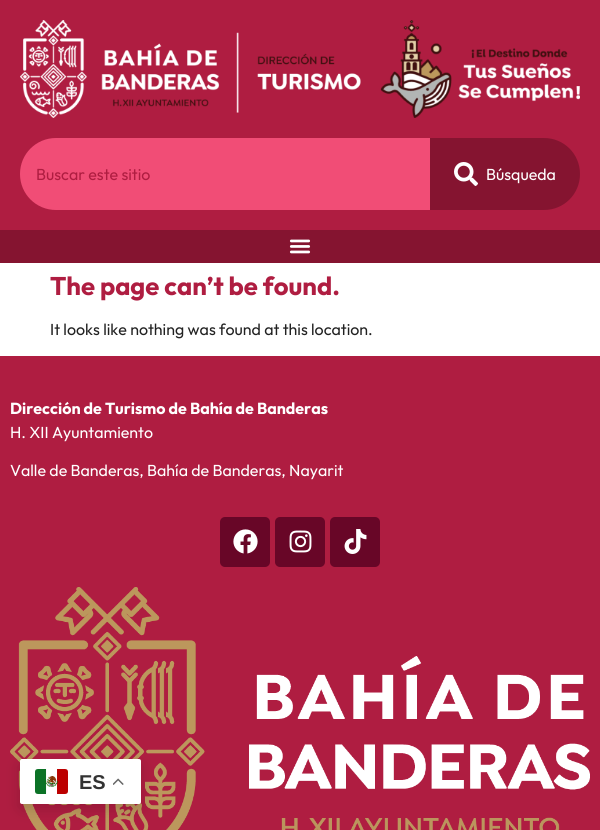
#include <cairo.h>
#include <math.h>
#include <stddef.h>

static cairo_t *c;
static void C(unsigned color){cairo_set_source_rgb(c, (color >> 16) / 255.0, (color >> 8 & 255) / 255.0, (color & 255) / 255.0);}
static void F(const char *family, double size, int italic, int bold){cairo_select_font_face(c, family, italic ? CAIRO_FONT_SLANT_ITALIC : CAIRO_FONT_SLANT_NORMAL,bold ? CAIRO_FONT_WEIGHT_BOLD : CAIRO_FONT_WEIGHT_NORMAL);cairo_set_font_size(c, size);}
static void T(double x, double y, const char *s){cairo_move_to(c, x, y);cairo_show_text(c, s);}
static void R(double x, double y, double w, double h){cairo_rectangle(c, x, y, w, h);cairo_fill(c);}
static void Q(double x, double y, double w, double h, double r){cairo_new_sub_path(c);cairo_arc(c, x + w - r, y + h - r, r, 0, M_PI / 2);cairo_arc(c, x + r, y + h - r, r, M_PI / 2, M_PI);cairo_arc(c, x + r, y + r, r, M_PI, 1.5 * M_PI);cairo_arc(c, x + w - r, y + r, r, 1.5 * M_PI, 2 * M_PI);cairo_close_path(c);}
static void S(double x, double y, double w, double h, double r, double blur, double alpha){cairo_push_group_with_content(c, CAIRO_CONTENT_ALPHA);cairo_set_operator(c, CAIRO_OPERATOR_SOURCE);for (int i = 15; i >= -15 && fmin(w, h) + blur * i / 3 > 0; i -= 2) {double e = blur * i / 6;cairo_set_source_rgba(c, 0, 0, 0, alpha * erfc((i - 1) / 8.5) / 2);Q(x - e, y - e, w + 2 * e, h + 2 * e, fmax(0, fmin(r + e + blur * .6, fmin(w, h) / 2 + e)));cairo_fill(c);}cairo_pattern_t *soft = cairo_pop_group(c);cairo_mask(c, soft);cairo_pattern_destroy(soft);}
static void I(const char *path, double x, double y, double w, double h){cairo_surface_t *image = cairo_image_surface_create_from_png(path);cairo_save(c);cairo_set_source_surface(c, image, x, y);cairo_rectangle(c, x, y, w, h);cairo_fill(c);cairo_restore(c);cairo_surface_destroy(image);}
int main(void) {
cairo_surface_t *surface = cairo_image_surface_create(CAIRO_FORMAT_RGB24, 600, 830);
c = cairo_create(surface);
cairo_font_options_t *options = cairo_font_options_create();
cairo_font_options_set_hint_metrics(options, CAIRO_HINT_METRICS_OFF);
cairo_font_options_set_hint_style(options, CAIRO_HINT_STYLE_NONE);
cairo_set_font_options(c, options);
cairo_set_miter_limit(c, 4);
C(0xffffff);
cairo_paint(c);
C(0xaf1d41);
R(0,0,600,230);
I("1.png",20,20,560,98);
C(0xf14d76);
cairo_new_path(c);
cairo_move_to(c,56,138);
cairo_line_to(c,430,138);
cairo_line_to(c,430,210);
cairo_line_to(c,56,210);
cairo_curve_to(c,36,210,20,194,20,174);
cairo_curve_to(c,20,154,36,138,56,138);
cairo_close_path(c);
cairo_fill(c);
F("Outfit",16,0,0);
C(0xaf1d41);
T(36,180,"Buscar este sitio");
C(0x851430);
cairo_new_path(c);
cairo_move_to(c,430,138);
cairo_line_to(c,544,138);
cairo_curve_to(c,564,138,580,154,580,174);
cairo_curve_to(c,580,194,564,210,544,210);
cairo_line_to(c,430,210);
cairo_close_path(c);
cairo_fill(c);
I("2.png",454,162,24,24);
C(0xffffff);
T(486,180,"Búsqueda");
C(0x851430);
R(0,230,600,33);
I("3.png",289,239,22,15);
F("Outfit",25.6,0,1);
C(0xaf1d41);
T(50,295,"The page can’t be found.");
F("Outfit",16,0,0);
C(0x222222);
T(50,335,"It looks like nothing was found at this location.");
C(0xaf1d41);
R(0,356,600,474);
F("Outfit",16,0,1);
C(0xffffff);
T(10,414,"Dirección de Turismo de Bahía de Banderas");
F("Outfit",16,0,0);
T(10,438,"H. XII Ayuntamiento");
T(10,476,"Valle de Banderas, Bahía de Banderas, Nayarit");
C(0x680627);
Q(220,517,50,50,5);
cairo_fill(c);
I("4.png",233,529,25,25);
Q(275,517,50,50,5);
cairo_fill(c);
I("5.png",289,530,23,23);
Q(330,517,50,50,5);
cairo_fill(c);
I("6.png",344,529,23,25);
I("7.png",10,587,580,243);
C(0x000000);
S(20,764,121,45,2,7.5,.15);
C(0xffffff);
Q(20,759,121,45,2);
cairo_fill(c);
I("8.png",35,769,33,25);
F("Liberation Sans",20,0,1);
C(0x333333);
T(79,789,"ES");
I("9.png",113,778,11,7);
cairo_surface_write_to_png(surface, "o.png");
cairo_font_options_destroy(options);
cairo_destroy(c);
cairo_surface_destroy(surface);
return 0;
}
